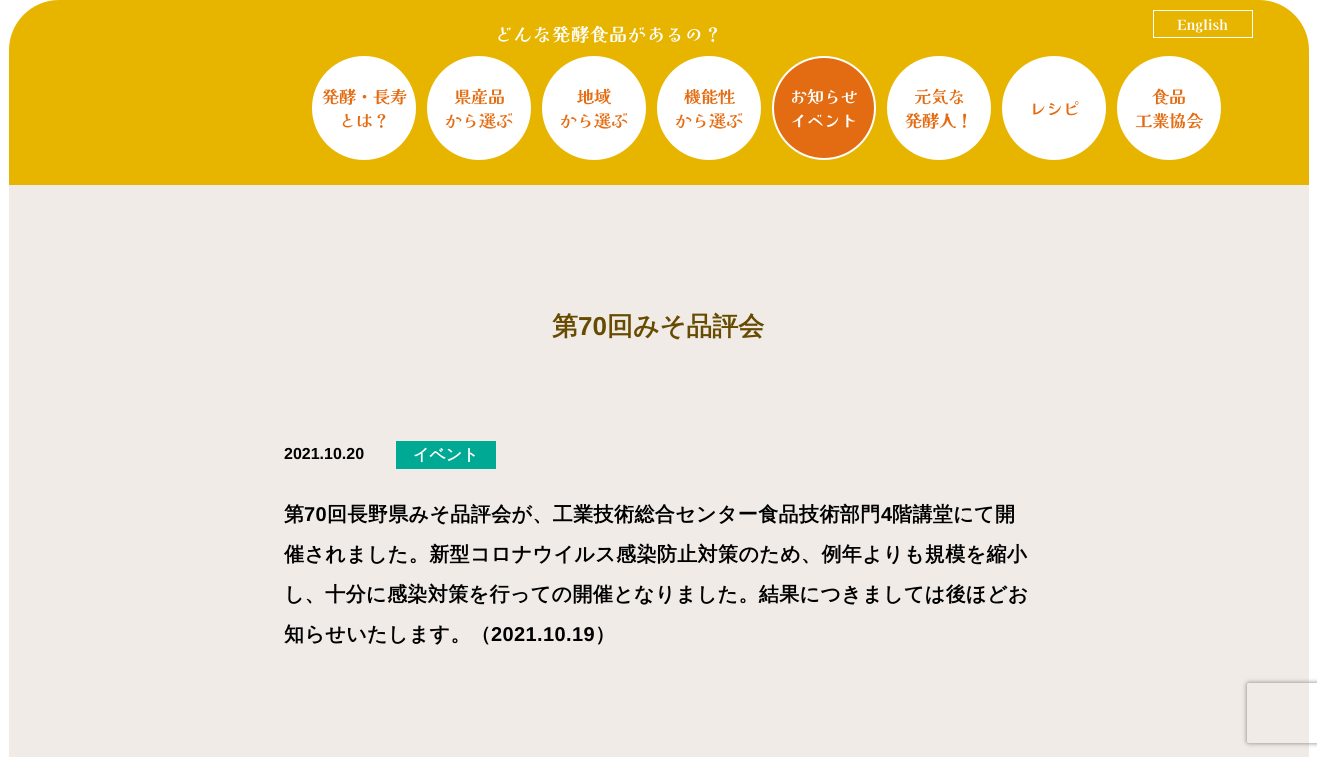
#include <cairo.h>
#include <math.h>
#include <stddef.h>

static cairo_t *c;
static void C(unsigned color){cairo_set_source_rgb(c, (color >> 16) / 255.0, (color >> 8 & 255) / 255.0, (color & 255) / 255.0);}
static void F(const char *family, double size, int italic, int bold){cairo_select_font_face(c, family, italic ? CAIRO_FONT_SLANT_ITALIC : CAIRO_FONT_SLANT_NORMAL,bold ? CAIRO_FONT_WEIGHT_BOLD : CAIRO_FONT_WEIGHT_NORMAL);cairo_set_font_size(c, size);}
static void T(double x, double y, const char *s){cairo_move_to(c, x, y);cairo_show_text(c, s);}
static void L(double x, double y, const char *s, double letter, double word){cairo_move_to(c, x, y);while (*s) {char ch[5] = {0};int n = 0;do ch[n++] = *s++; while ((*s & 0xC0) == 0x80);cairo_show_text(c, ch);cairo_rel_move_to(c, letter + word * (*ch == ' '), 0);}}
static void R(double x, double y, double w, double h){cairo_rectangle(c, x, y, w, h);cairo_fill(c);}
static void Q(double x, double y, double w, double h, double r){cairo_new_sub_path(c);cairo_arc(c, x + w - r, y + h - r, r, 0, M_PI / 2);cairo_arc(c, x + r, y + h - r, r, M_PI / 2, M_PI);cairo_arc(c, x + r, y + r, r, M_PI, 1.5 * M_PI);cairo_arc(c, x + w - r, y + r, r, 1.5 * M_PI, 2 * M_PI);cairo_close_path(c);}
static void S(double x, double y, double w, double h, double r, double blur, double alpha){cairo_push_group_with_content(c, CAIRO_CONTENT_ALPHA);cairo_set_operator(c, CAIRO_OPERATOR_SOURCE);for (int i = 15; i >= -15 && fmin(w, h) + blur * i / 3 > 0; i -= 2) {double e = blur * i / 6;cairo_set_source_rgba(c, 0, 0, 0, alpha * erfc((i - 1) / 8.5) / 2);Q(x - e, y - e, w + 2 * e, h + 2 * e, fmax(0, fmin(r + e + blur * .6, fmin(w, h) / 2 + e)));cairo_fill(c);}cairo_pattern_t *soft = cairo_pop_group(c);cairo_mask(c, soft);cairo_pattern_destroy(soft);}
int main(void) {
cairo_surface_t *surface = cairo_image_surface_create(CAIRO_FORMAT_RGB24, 1317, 757);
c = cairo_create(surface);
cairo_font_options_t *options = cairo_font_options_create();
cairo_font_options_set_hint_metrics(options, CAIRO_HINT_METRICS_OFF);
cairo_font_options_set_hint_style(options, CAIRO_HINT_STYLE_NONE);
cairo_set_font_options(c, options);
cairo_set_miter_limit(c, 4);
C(0xffffff);
cairo_paint(c);
C(0xe7b400);
cairo_new_path(c);
cairo_move_to(c,59,0);
cairo_line_to(c,1259,0);
cairo_curve_to(c,1286.5,0,1309,22.5,1309,50);
cairo_line_to(c,1309,185);
cairo_line_to(c,9,185);
cairo_line_to(c,9,50);
cairo_curve_to(c,9,22.5,31.5,0,59,0);
cairo_close_path(c);
cairo_fill(c);
cairo_rectangle(c,1153.5,10.5,99,27);
C(0xffffff);
cairo_set_line_width(c,1);
cairo_stroke(c);
F("Kaisei Opti",14,0,1);
T(1177,30,"English");
F("Kaisei Opti",18,0,1);
L(495,41,"どんな発酵食品があるの？",1,0);
cairo_new_path(c);
cairo_arc(c,364,108,51,0,2 * M_PI);
cairo_fill_preserve(c);
cairo_set_line_width(c,2);
cairo_stroke(c);
F("Kaisei Opti",17,0,1);
C(0xe36c13);
T(322,103,"発酵・長寿");
T(339,127,"とは？");
C(0xffffff);
cairo_new_path(c);
cairo_arc(c,479,108,51,0,2 * M_PI);
cairo_fill_preserve(c);
cairo_stroke(c);
C(0xe36c13);
T(454,103,"県産品");
T(445,127,"から選ぶ");
C(0xffffff);
cairo_new_path(c);
cairo_arc(c,594,108,51,0,2 * M_PI);
cairo_fill_preserve(c);
cairo_stroke(c);
C(0xe36c13);
T(577,103,"地域");
T(560,127,"から選ぶ");
C(0xffffff);
cairo_new_path(c);
cairo_arc(c,709,108,51,0,2 * M_PI);
cairo_fill_preserve(c);
cairo_stroke(c);
C(0xe36c13);
T(684,103,"機能性");
T(675,127,"から選ぶ");
cairo_new_path(c);
cairo_arc(c,824,108,51,0,2 * M_PI);
cairo_fill_preserve(c);
C(0xffffff);
cairo_stroke(c);
T(790,103,"お知らせ");
T(790,127,"イベント");
cairo_new_path(c);
cairo_arc(c,939,108,51,0,2 * M_PI);
cairo_fill_preserve(c);
cairo_stroke(c);
C(0xe36c13);
T(914,103,"元気な");
T(905,127,"発酵人！");
C(0xffffff);
cairo_new_path(c);
cairo_arc(c,1054,108,51,0,2 * M_PI);
cairo_fill_preserve(c);
cairo_stroke(c);
C(0xe36c13);
T(1029,115,"レシピ");
C(0xffffff);
cairo_new_path(c);
cairo_arc(c,1169,108,51,0,2 * M_PI);
cairo_fill_preserve(c);
cairo_stroke(c);
C(0xe36c13);
T(1152,103,"食品");
T(1135,127,"工業協会");
C(0xf0ebe7);
R(9,185,1300,572);
F("WenQuanYi Zen Hei",26,0,1);
C(0x664b00);
T(552,335,"第");
F("Liberation Sans",26,0,1);
T(578,335,"70");
F("WenQuanYi Zen Hei",26,0,1);
T(607,335,"回みそ品評会");
F("Liberation Sans",16,0,1);
C(0x000000);
T(284,459,"2021.10.20");
C(0x00a994);
R(396,441,100,28);
F("WenQuanYi Zen Hei",16,0,1);
C(0xffffff);
T(413,460,"イベント");
F("WenQuanYi Zen Hei",20,0,1);
C(0x000000);
L(284,521,"第",.4,0);
F("Liberation Sans",20,0,1);
L(304,521,"70",.4,0);
F("WenQuanYi Zen Hei",20,0,1);
L(327,521,"回長野県みそ品評会が、工業技術総合センター食品技術部門",.4,0);
F("Liberation Sans",20,0,1);
L(881,521,"4",.4,0);
F("WenQuanYi Zen Hei",20,0,1);
L(892,521,"階講堂にて開",.4,0);
L(284,561,"催されました。新型コロナウイルス感染防止対策のため、例年よりも規模を縮小",.4,0);
L(284,601,"し、十分に感染対策を行っての開催となりました。結果につきましては後ほどお",.4,0);
L(284,641,"知らせいたします。（",.4,0);
F("Liberation Sans",20,0,1);
L(491,641,"2021.10.19",.4,0);
F("WenQuanYi Zen Hei",20,0,1);
L(595,641,"）",.4,0);
cairo_save(c);
cairo_set_fill_rule(c,CAIRO_FILL_RULE_EVEN_ODD);
cairo_new_path(c);
cairo_move_to(c,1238,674);
cairo_line_to(c,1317,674);
cairo_line_to(c,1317,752);
cairo_line_to(c,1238,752);
cairo_close_path(c);
cairo_move_to(c,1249,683);
cairo_line_to(c,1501,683);
cairo_curve_to(c,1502,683,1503,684,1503,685);
cairo_line_to(c,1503,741);
cairo_curve_to(c,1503,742,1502,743,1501,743);
cairo_line_to(c,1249,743);
cairo_curve_to(c,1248,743,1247,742,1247,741);
cairo_line_to(c,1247,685);
cairo_curve_to(c,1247,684,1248,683,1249,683);
cairo_close_path(c);
cairo_clip(c);
C(0x808080);
S(1247,683,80,60,2,2.5,1);
cairo_restore(c);
cairo_surface_write_to_png(surface, "o.png");
cairo_font_options_destroy(options);
cairo_destroy(c);
cairo_surface_destroy(surface);
return 0;
}
